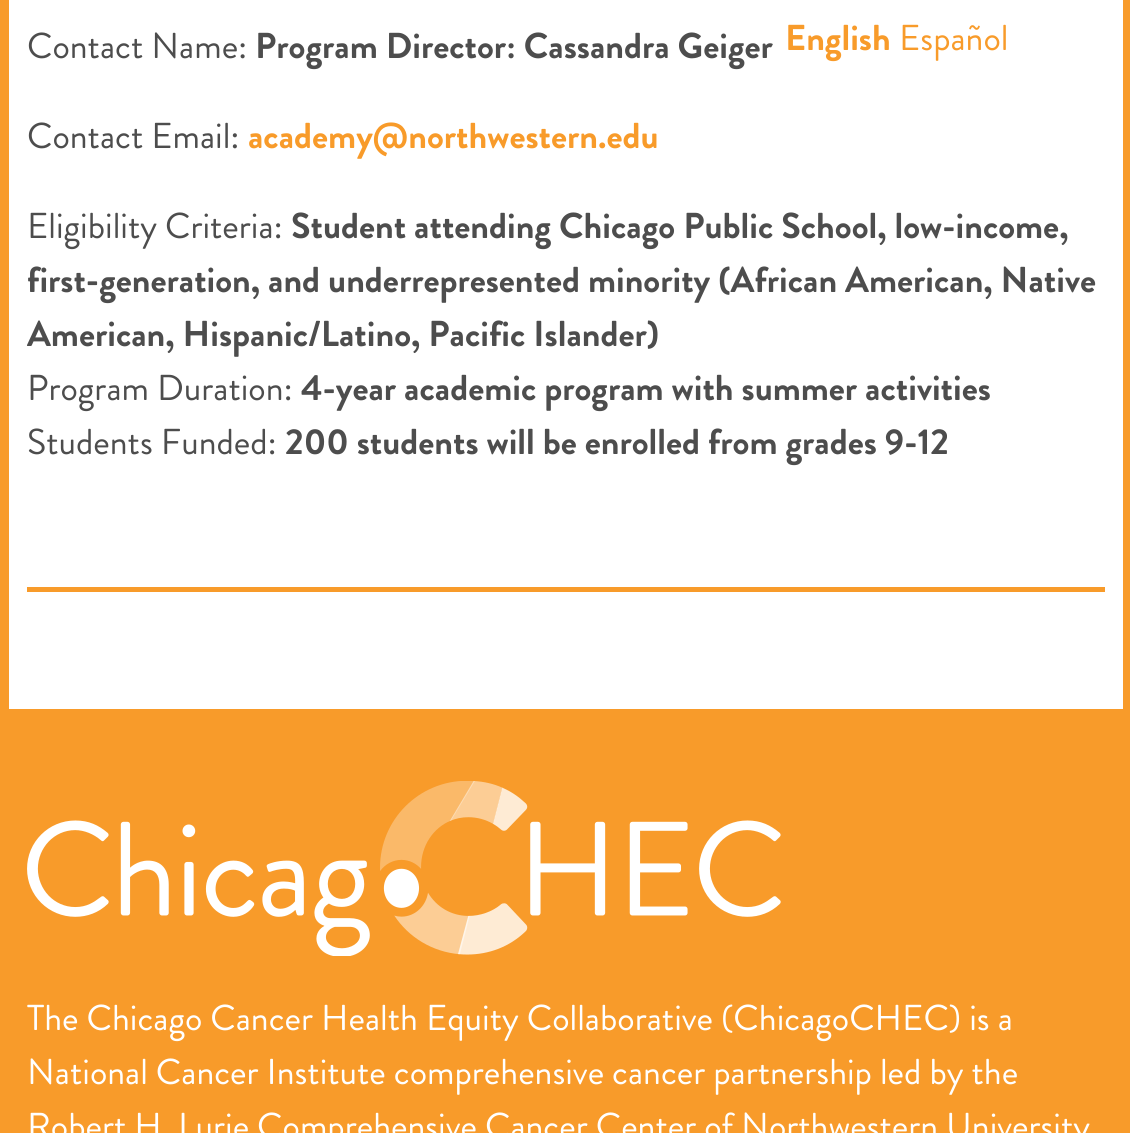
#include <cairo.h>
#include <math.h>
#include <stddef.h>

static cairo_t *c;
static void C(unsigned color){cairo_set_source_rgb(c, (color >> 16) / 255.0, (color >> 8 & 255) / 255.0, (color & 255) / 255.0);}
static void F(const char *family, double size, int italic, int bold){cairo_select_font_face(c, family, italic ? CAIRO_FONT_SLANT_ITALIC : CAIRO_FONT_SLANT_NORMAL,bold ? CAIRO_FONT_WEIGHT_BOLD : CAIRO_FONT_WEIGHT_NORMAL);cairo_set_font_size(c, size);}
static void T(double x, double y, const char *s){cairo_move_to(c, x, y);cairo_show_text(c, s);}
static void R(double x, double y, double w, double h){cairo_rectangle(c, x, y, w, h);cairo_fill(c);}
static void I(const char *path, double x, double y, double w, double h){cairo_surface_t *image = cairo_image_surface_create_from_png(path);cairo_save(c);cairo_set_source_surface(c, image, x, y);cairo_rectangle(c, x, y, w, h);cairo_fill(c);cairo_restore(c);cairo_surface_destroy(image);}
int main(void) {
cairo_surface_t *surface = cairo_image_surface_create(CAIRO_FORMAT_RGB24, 1130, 1133);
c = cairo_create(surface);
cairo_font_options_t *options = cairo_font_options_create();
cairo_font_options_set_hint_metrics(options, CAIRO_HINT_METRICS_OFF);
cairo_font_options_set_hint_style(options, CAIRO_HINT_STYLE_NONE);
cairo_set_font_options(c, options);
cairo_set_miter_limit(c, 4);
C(0xffffff);
cairo_paint(c);
cairo_rectangle(c,4.5,-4.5,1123,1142);
C(0xf89b2a);
cairo_set_line_width(c,9);
cairo_stroke(c);
F("Brandon Grotesque",36,0,1);
T(785,50,"English");
F("Brandon Grotesque",36,0,0);
T(899,50,"Español");
C(0x4d4d4d);
T(27,58,"Contact Name:");
F("Brandon Grotesque",36,0,1);
T(255,58,"Program Director: Cassandra Geiger");
F("Brandon Grotesque",36,0,0);
T(27,148,"Contact Email:");
F("Brandon Grotesque",36,0,1);
C(0xf89b2a);
T(248,148,"academy@northwestern.edu");
F("Brandon Grotesque",36,0,0);
C(0x4d4d4d);
T(27,238,"Eligibility Criteria:");
F("Brandon Grotesque",36,0,1);
T(291,238,"Student attending Chicago Public School, low-income,");
T(27,292,"first-generation, and underrepresented minority (African American, Native");
T(27,346,"American, Hispanic/Latino, Pacific Islander)");
F("Brandon Grotesque",36,0,0);
T(27,400,"Program Duration:");
F("Brandon Grotesque",36,0,1);
T(301,400,"4-year academic program with summer activities");
F("Brandon Grotesque",36,0,0);
T(27,454,"Students Funded:");
F("Brandon Grotesque",36,0,1);
T(285,454,"200 students will be enrolled from grades 9-12");
C(0xf89b2a);
R(27,587,1078,5);
R(9,709,1114,424);
I("1.png",27,781,754,175);
F("Brandon Grotesque",36,0,0);
C(0xffffff);
T(27,1030,"The Chicago Cancer Health Equity Collaborative (ChicagoCHEC) is a");
T(27,1084,"National Cancer Institute comprehensive cancer partnership led by the");
T(27,1138,"Robert H. Lurie Comprehensive Cancer Center of Northwestern University");
cairo_surface_write_to_png(surface, "o.png");
cairo_font_options_destroy(options);
cairo_destroy(c);
cairo_surface_destroy(surface);
return 0;
}
